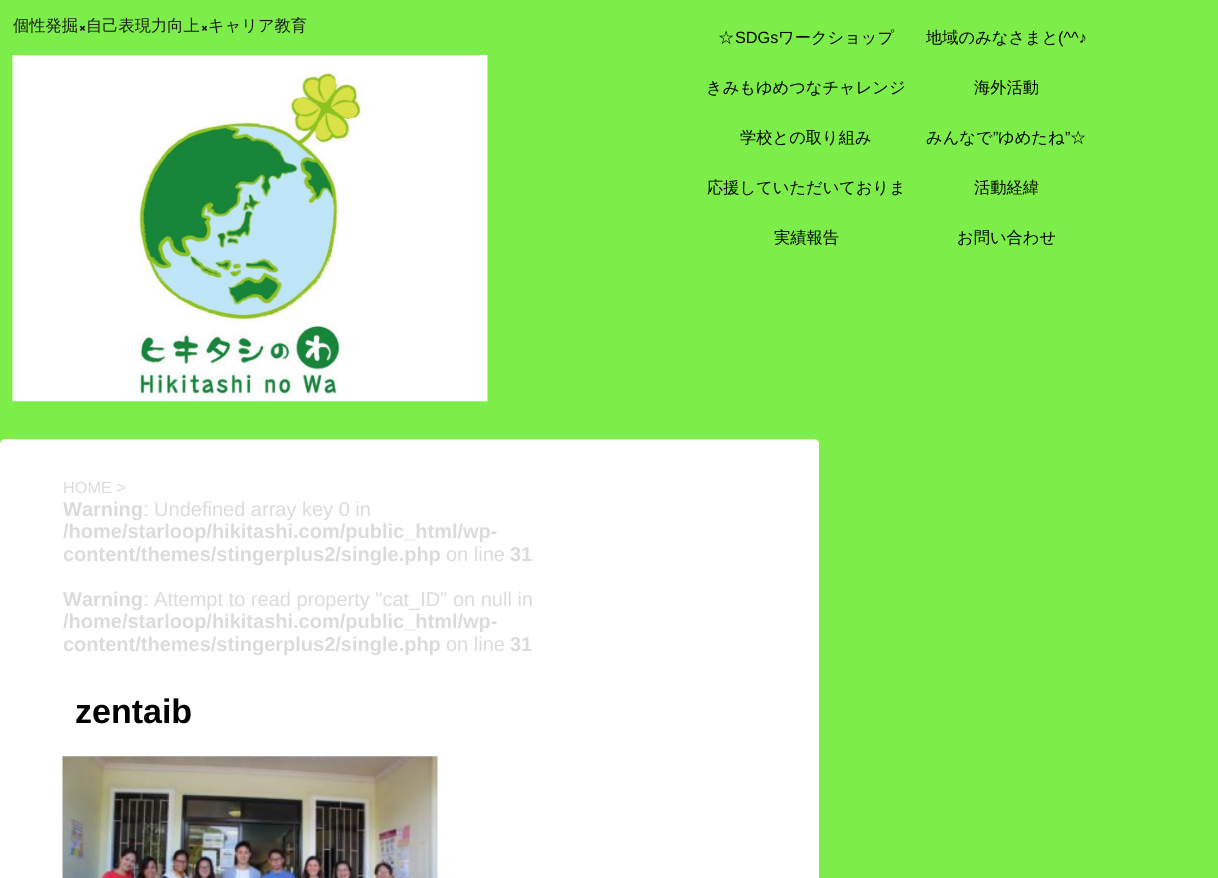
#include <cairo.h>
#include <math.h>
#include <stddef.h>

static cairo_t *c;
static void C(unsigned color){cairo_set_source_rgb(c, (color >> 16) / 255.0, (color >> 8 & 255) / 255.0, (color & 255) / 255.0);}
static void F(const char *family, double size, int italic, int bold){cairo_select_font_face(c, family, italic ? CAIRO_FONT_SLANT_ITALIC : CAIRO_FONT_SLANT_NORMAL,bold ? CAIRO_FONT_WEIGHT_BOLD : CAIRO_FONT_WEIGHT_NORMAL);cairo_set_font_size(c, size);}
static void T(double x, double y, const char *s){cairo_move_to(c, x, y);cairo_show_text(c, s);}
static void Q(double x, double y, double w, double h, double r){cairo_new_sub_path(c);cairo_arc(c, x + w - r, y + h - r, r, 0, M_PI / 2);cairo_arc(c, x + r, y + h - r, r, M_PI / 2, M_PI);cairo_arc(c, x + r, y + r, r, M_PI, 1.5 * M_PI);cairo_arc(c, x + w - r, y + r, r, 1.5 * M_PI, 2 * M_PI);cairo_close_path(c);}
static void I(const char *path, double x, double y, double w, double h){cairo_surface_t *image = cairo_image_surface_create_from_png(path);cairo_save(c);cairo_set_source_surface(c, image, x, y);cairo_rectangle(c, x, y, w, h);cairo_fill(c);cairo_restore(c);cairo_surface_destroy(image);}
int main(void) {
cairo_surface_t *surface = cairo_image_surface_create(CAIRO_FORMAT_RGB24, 1218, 878);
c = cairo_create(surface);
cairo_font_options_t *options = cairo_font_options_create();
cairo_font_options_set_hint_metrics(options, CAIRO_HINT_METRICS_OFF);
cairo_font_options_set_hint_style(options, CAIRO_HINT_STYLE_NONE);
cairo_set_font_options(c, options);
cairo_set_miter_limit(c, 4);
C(0x7ded49);
cairo_paint(c);
F("WenQuanYi Zen Hei Medium",16.25,0,0);
C(0x1a1a1a);
T(13,31,"個性発掘");
F("Josefin Sans",16.25,0,0);
T(78,31,"×");
F("WenQuanYi Zen Hei Medium",16.25,0,0);
T(86,31,"自己表現力向上");
F("Josefin Sans",16.25,0,0);
T(200,31,"×");
F("WenQuanYi Zen Hei Medium",16.25,0,0);
T(208,31,"キャリア教育");
I("1.png",12,55,476,347);
C(0x000000);
T(718,43,"☆");
F("Liberation Sans",16.25,0,0);
T(735,43,"SDGs");
F("WenQuanYi Zen Hei Medium",16.25,0,0);
T(778,43,"ワークショップ");
T(926,43,"地域のみなさまと");
F("Liberation Sans",16.25,0,0);
T(1058,43,"(^^♪");
F("WenQuanYi Zen Hei Medium",16.25,0,0);
T(706,93,"きみもゆめつなチャレンジ");
T(974,93,"海外活動");
T(740,143,"学校との取り組み");
T(926,143,"みんなで");
F("Liberation Sans",16.25,0,0);
T(993,143,"”");
F("WenQuanYi Zen Hei Medium",16.25,0,0);
T(998,143,"ゆめたね");
F("Liberation Sans",16.25,0,0);
T(1065,143,"”");
F("WenQuanYi Zen Hei Medium",16.25,0,0);
T(1070,143,"☆");
T(707,193,"応援していただいておりま");
T(974,193,"活動経緯");
T(774,243,"実績報告");
T(957,243,"お問い合わせ");
C(0xffffff);
Q(0,439,819,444,5);
cairo_fill(c);
F("Liberation Sans",16.25,0,0);
C(0xdbdbdb);
T(63,493,"HOME >");
F("Liberation Sans",20,0,1);
T(63,516,"Warning");
F("Liberation Sans",20,0,0);
T(143,516,": Undefined array key 0 in");
F("Liberation Sans",20,0,1);
T(63,538,"/home/starloop/hikitashi.com/public_html/wp-");
T(63,561,"content/themes/stingerplus2/single.php");
F("Liberation Sans",20,0,0);
T(446,561,"on line");
F("Liberation Sans",20,0,1);
T(510,561,"31");
T(63,606,"Warning");
F("Liberation Sans",20,0,0);
T(143,606,": Attempt to read property \"cat_ID\" on null in");
F("Liberation Sans",20,0,1);
T(63,628,"/home/starloop/hikitashi.com/public_html/wp-");
T(63,651,"content/themes/stingerplus2/single.php");
F("Liberation Sans",20,0,0);
T(446,651,"on line");
F("Liberation Sans",20,0,1);
T(510,651,"31");
F("Liberation Sans",34,0,1);
C(0x000000);
T(75,723,"zentaib");
I("2.png",62,756,376,122);
cairo_surface_write_to_png(surface, "o.png");
cairo_font_options_destroy(options);
cairo_destroy(c);
cairo_surface_destroy(surface);
return 0;
}
